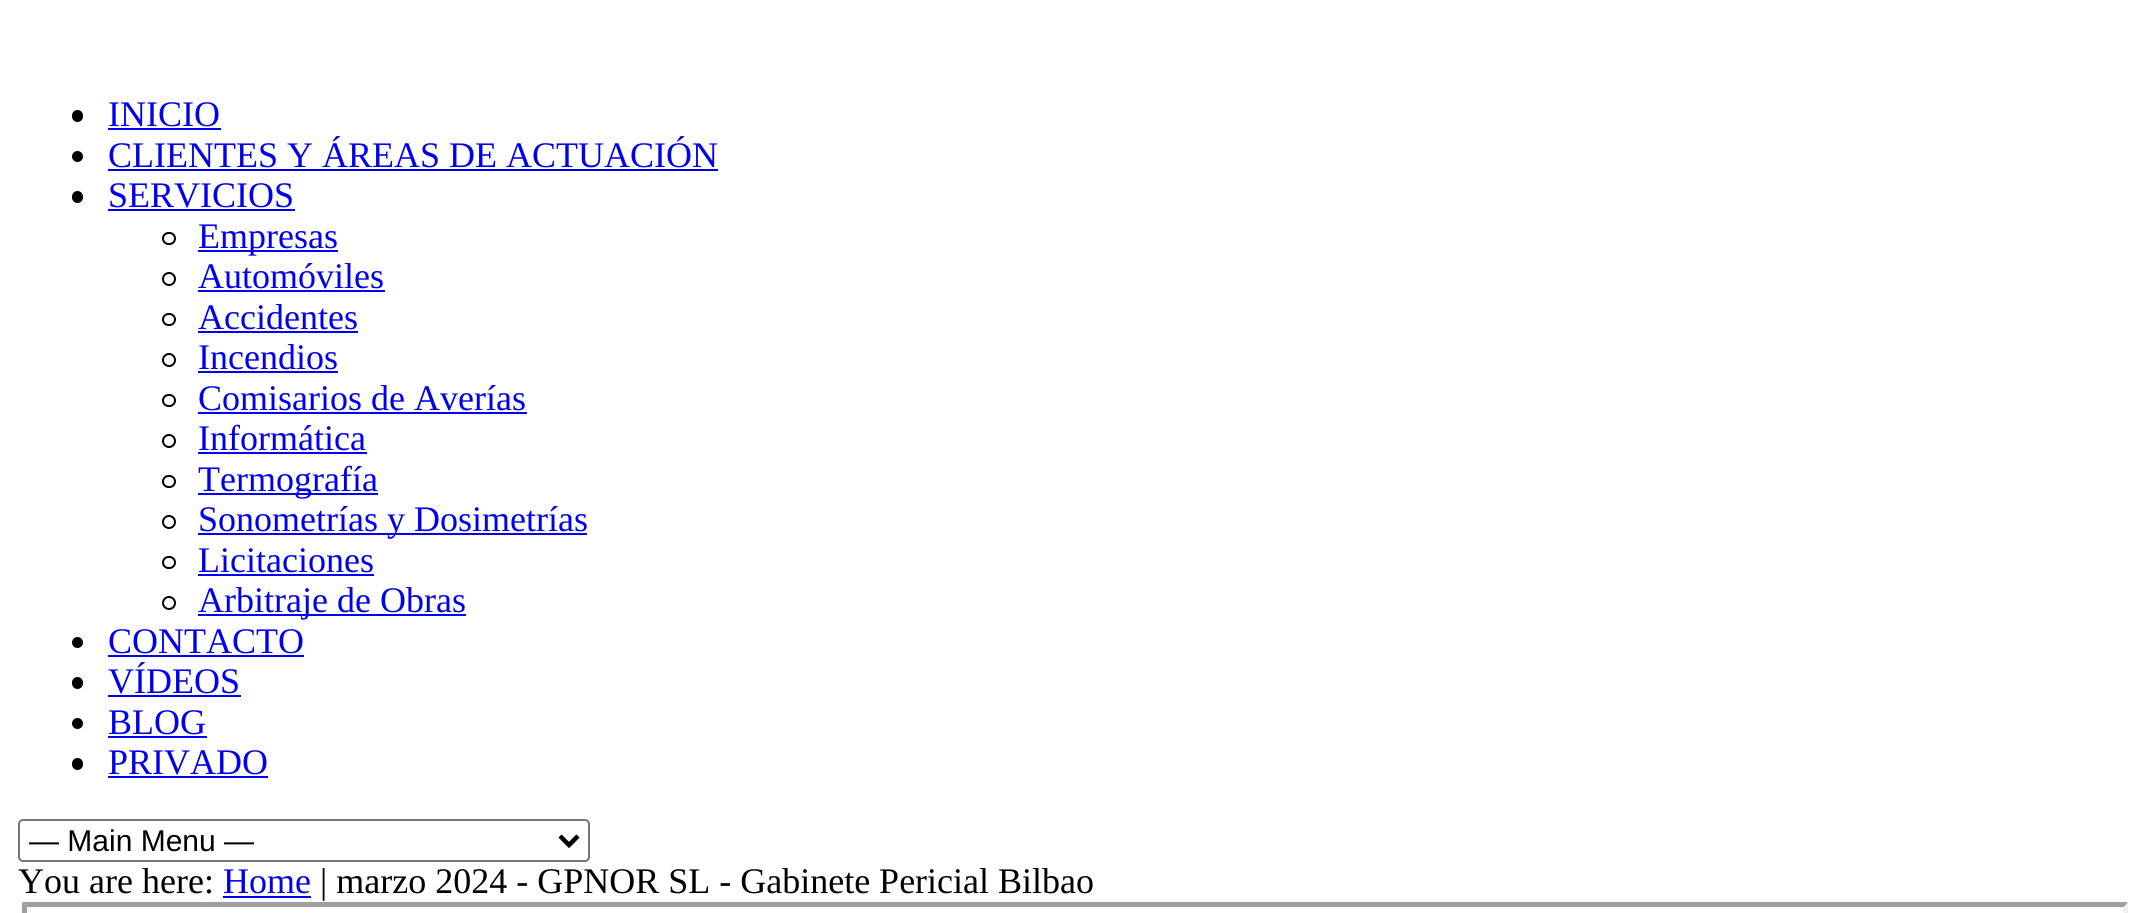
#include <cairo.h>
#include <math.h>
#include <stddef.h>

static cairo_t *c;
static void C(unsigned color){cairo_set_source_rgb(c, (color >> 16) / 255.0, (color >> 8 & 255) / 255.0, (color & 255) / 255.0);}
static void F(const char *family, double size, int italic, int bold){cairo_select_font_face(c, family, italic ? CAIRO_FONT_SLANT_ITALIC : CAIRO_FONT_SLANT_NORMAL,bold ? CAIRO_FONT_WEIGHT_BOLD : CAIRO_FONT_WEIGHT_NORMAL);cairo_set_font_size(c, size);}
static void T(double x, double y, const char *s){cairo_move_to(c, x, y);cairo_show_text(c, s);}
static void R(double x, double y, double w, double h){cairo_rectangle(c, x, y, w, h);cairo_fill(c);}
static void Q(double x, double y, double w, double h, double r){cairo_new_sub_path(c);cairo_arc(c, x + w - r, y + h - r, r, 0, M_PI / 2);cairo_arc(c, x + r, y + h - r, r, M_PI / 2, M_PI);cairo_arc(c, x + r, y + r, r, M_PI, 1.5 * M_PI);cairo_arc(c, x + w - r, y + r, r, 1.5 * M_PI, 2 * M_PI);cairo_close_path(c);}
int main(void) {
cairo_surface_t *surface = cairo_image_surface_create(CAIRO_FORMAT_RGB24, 2150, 913);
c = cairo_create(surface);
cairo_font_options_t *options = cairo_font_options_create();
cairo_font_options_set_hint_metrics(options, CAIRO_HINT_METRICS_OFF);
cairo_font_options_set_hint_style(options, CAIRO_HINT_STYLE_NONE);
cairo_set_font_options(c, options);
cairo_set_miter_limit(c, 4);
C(0xffffff);
cairo_paint(c);
C(0x000000);
Q(72,110,11,12,5.5);
cairo_fill(c);
F("Liberation Serif",36,0,0);
C(0x0000ee);
T(108,126,"INICIO");
R(108,128,113,2);
C(0x000000);
cairo_new_path(c);
cairo_arc(c,77.5,156.5,5.5,0,2 * M_PI);
cairo_fill(c);
C(0x0000ee);
T(108,167,"CLIENTES Y ÁREAS DE ACTUACIÓN");
R(108,169,610,2);
C(0x000000);
Q(72,191,11,12,5.5);
cairo_fill(c);
C(0x0000ee);
T(108,207,"SERVICIOS");
R(108,209,187,2);
Q(163,233,12,11,5.5);
C(0x000000);
cairo_stroke(c);
C(0x0000ee);
R(198,250,140,2);
T(198,248,"Empresas");
cairo_new_path(c);
cairo_arc(c,169,279,6,0,2 * M_PI);
C(0x000000);
cairo_stroke(c);
C(0x0000ee);
T(198,288,"Automóviles");
R(198,290,187,2);
Q(163,314,12,11,5.5);
C(0x000000);
cairo_stroke(c);
C(0x0000ee);
T(198,329,"Accidentes");
R(198,331,160,2);
cairo_new_path(c);
cairo_arc(c,169,360,6,0,2 * M_PI);
C(0x000000);
cairo_stroke(c);
C(0x0000ee);
T(198,369,"Incendios");
R(198,371,140,2);
Q(163,395,12,11,5.5);
C(0x000000);
cairo_stroke(c);
C(0x0000ee);
T(198,410,"Comisarios de Averías");
R(198,412,329,2);
cairo_new_path(c);
cairo_arc(c,169,441,6,0,2 * M_PI);
C(0x000000);
cairo_stroke(c);
C(0x0000ee);
T(198,450,"Informática");
R(198,452,169,2);
Q(163,476,12,11,5.5);
C(0x000000);
cairo_stroke(c);
C(0x0000ee);
R(198,493,180,2);
T(198,491,"Termografía");
cairo_new_path(c);
cairo_arc(c,169,522,6,0,2 * M_PI);
C(0x000000);
cairo_stroke(c);
C(0x0000ee);
R(198,533,389,2);
T(198,531,"Sonometrías y Dosimetrías");
Q(163,557,12,11,5.5);
C(0x000000);
cairo_stroke(c);
C(0x0000ee);
T(198,572,"Licitaciones");
R(198,574,176,2);
cairo_new_path(c);
cairo_arc(c,169,603,6,0,2 * M_PI);
C(0x000000);
cairo_stroke(c);
C(0x0000ee);
R(198,614,268,2);
T(198,612,"Arbitraje de Obras");
C(0x000000);
cairo_new_path(c);
cairo_arc(c,77.5,642.5,5.5,0,2 * M_PI);
cairo_fill(c);
C(0x0000ee);
T(108,653,"CONTACTO");
R(108,655,196,2);
C(0x000000);
Q(72,677,11,12,5.5);
cairo_fill(c);
C(0x0000ee);
T(108,693,"VÍDEOS");
R(108,695,133,2);
C(0x000000);
cairo_new_path(c);
cairo_arc(c,77.5,723.5,5.5,0,2 * M_PI);
cairo_fill(c);
C(0x0000ee);
T(108,734,"BLOG");
R(108,736,99,2);
C(0x000000);
Q(72,758,11,12,5.5);
cairo_fill(c);
C(0x0000ee);
T(108,774,"PRIVADO");
R(108,776,160,2);
Q(19,820,570,41,4);
C(0x767676);
cairo_stroke(c);
cairo_new_path(c);
cairo_move_to(c,560,836);
cairo_line_to(c,569,845);
cairo_line_to(c,578,836);
C(0x000000);
cairo_set_line_width(c,4.5);
cairo_stroke(c);
F("Liberation Sans",30,0,0);
T(29,851,"— Main Menu —");
F("Liberation Serif",36,0,0);
T(18,893,"You are here:");
C(0x0000ee);
T(223,893,"Home");
R(223,896,88,2);
C(0x000000);
T(320,893,"| marzo 2024 - GPNOR SL - Gabinete Pericial Bilbao");
C(0x9f9f9f);
cairo_new_path(c);
cairo_move_to(c,22,902);
cairo_line_to(c,2128,902);
cairo_line_to(c,2124,907);
cairo_line_to(c,27,907);
cairo_close_path(c);
cairo_fill(c);
C(0xefefef);
cairo_new_path(c);
cairo_move_to(c,2128,902);
cairo_line_to(c,2128,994);
cairo_line_to(c,2124,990);
cairo_line_to(c,2124,907);
cairo_close_path(c);
cairo_fill(c);
C(0x9f9f9f);
cairo_new_path(c);
cairo_move_to(c,22,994);
cairo_line_to(c,22,902);
cairo_line_to(c,27,907);
cairo_line_to(c,27,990);
cairo_close_path(c);
cairo_fill(c);
cairo_surface_write_to_png(surface, "o.png");
cairo_font_options_destroy(options);
cairo_destroy(c);
cairo_surface_destroy(surface);
return 0;
}
